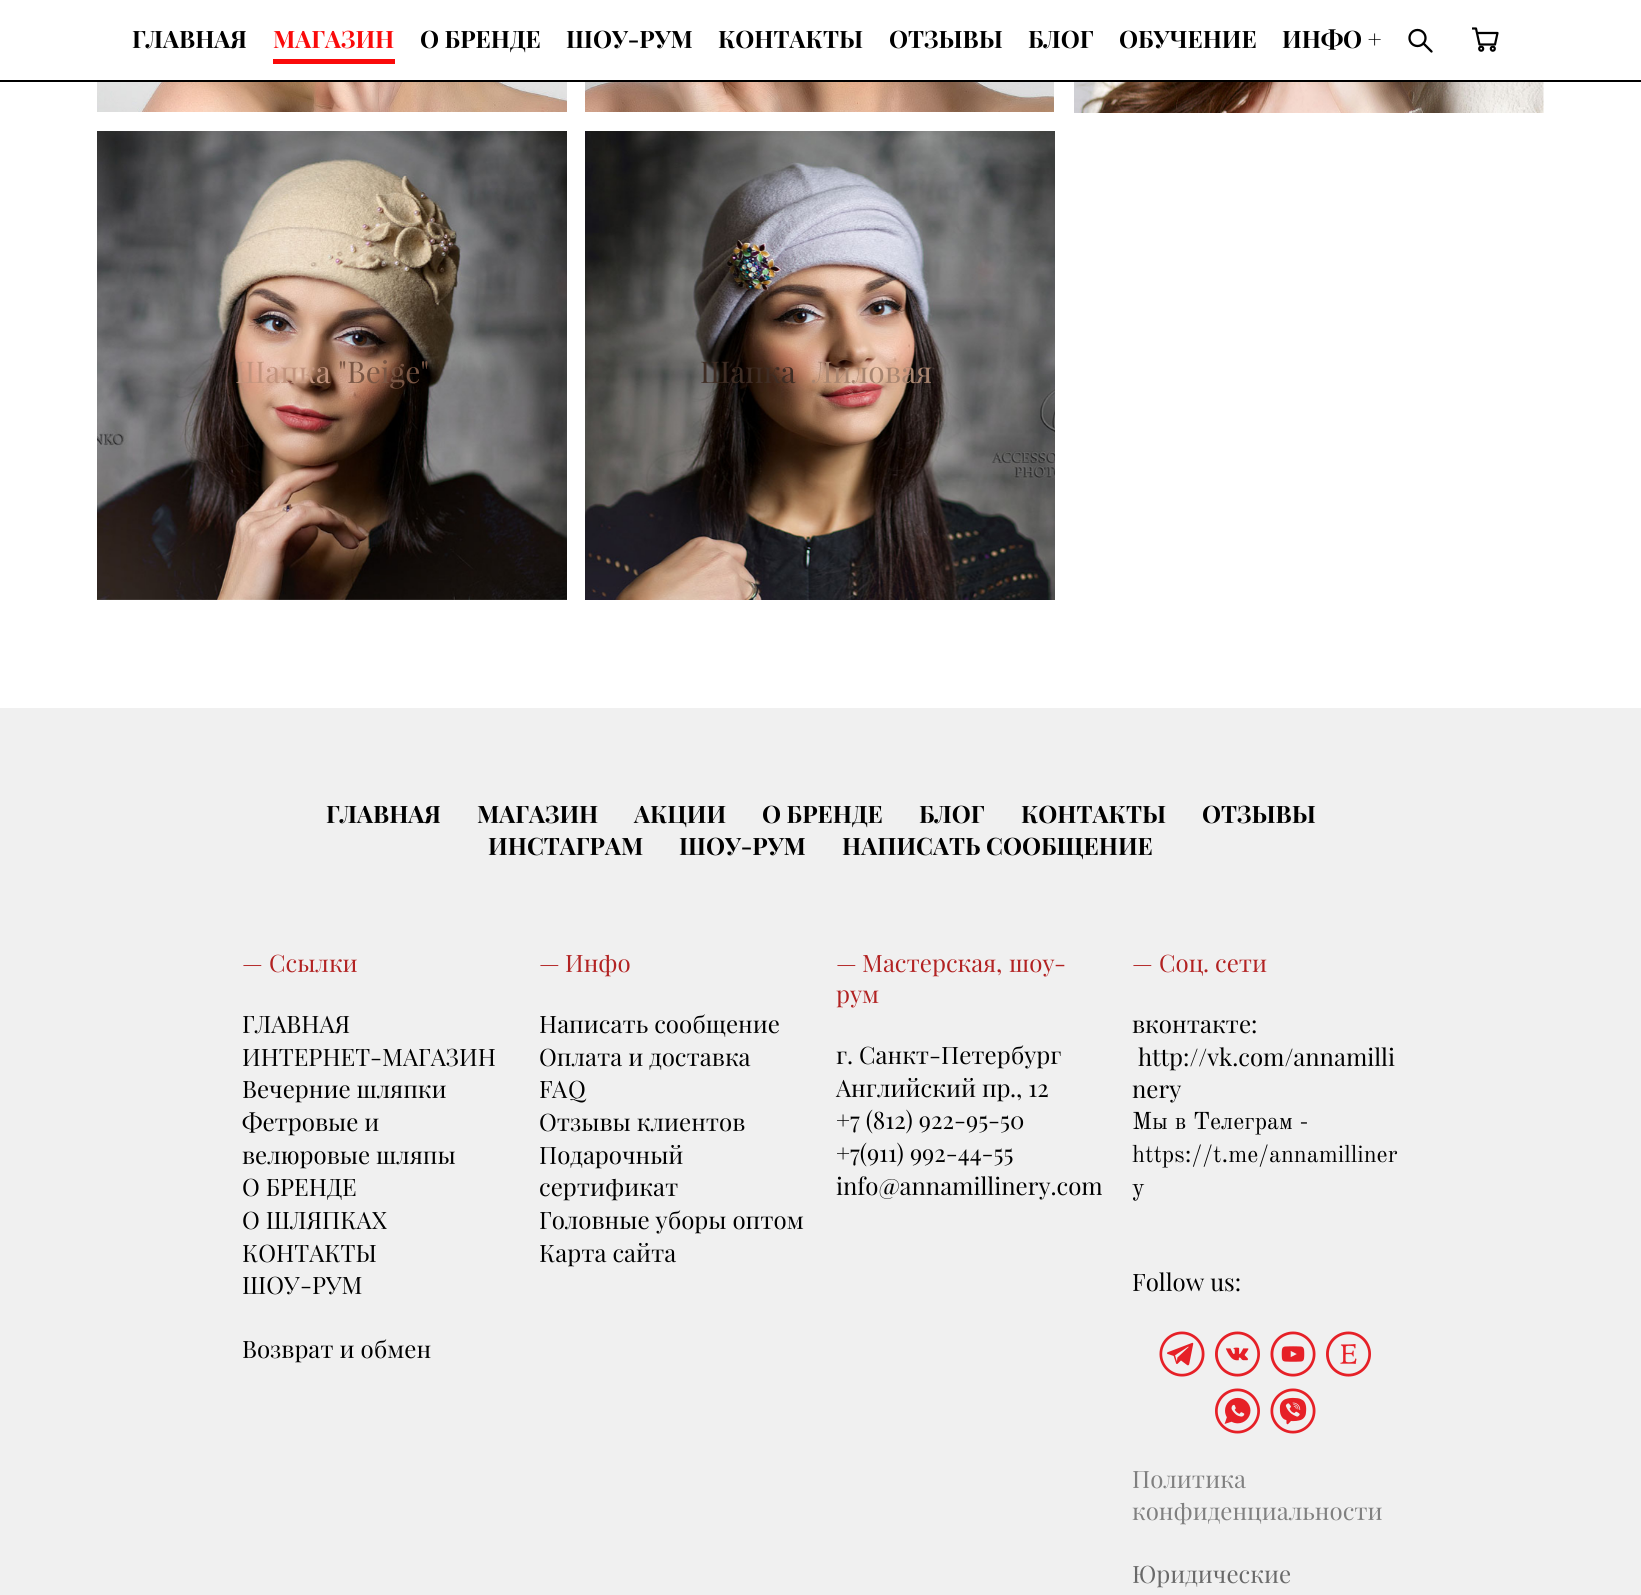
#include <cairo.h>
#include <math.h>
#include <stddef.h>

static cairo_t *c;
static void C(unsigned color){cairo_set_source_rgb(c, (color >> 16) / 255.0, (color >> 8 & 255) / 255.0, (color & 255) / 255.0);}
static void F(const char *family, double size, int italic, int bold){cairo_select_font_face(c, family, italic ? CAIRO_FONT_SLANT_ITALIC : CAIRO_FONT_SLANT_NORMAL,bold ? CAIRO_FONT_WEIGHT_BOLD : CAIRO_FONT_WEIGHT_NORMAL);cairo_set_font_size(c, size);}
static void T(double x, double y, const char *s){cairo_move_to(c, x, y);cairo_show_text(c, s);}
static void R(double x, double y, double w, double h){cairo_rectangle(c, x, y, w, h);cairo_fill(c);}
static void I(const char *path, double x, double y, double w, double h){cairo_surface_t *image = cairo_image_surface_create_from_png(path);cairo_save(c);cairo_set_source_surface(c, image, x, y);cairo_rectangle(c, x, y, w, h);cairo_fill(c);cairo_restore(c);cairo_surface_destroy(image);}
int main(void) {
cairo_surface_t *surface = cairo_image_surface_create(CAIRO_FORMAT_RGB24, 1641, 1595);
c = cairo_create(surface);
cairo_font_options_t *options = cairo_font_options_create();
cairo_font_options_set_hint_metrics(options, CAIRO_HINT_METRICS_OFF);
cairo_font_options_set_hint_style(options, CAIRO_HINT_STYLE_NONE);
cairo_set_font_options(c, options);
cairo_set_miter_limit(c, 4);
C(0xffffff);
cairo_paint(c);
F("Playfair Display",24,0,1);
C(0x000000);
T(132,48,"ГЛАВНАЯ");
C(0xfa0a0a);
T(273,48,"МАГАЗИН");
R(273,59,122,5);
C(0x000000);
T(420,48,"О БРЕНДЕ");
T(566,48,"ШОУ-РУМ");
T(718,48,"КОНТАКТЫ");
T(889,48,"ОТЗЫВЫ");
T(1028,48,"БЛОГ");
T(1119,48,"ОБУЧЕНИЕ");
T(1282,48,"ИНФО +");
cairo_new_path(c);
cairo_arc(c,1417.5,38,8,0,2 * M_PI);
cairo_set_line_width(c,2.3);
cairo_stroke(c);
cairo_new_path(c);
cairo_move_to(c,1423.5,43.5);
cairo_line_to(c,1431.5,51.5);
cairo_set_line_cap(c,CAIRO_LINE_CAP_ROUND);
cairo_set_line_join(c,CAIRO_LINE_JOIN_ROUND);
cairo_stroke(c);
cairo_save(c);
cairo_rectangle(c,1472,26,27,27);
cairo_clip(c);
cairo_new_path(c);
cairo_move_to(c,1472.5,28.5);
cairo_line_to(c,1476,28.5);
cairo_line_to(c,1479.5,44.5);
cairo_line_to(c,1495,44.5);
cairo_line_to(c,1497.5,33);
cairo_line_to(c,1478,33);
cairo_set_line_width(c,2.2);
cairo_stroke(c);
cairo_restore(c);
cairo_arc(c,1481.2,48.7,2,0,2 * M_PI);
cairo_set_line_width(c,2.2);
cairo_set_line_cap(c,CAIRO_LINE_CAP_BUTT);
cairo_set_line_join(c,CAIRO_LINE_JOIN_MITER);
cairo_stroke(c);
cairo_arc(c,1492.8,48.7,2,0,2 * M_PI);
cairo_stroke(c);
R(0,80,1641,2);
I("1.png",97,82,470,30);
I("2.png",585,82,469,30);
I("3.png",1074,82,470,31);
I("4.png",97,131,470,469);
F("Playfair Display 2",30,0,0);
C(0xc2947e);
T(235,383,"Шапка");
F("Playfair Display",30,0,0);
C(0x795644);
T(338,383,"\"Beige\"");
I("5.png",585,131,470,469);
F("Playfair Display 2",30,0,0);
C(0x3f2d24);
T(700,383,"Шапка");
C(0xa88570);
T(812,383,"Лиловая");
C(0xf0f0f0);
R(0,708,1641,887);
F("Playfair Display",24,0,1);
C(0x000000);
T(326,823,"ГЛАВНАЯ");
T(477,823,"МАГАЗИН");
T(634,823,"АКЦИИ");
T(762,823,"О БРЕНДЕ");
T(919,823,"БЛОГ");
T(1021,823,"КОНТАКТЫ");
T(1202,823,"ОТЗЫВЫ");
T(488,855,"ИНСТАГРАМ");
T(679,855,"ШОУ-РУМ");
T(842,855,"НАПИСАТЬ СООБЩЕНИЕ");
F("Playfair Display",24,0,0);
C(0xb22222);
T(242,972,"—");
F("Playfair Display 2",24,0,0);
T(269,972,"Ссылки");
C(0x000000);
T(242,1033,"ГЛАВНАЯ");
T(242,1066,"ИНТЕРНЕТ");
F("Playfair Display",24,0,0);
T(370,1066,"-");
F("Playfair Display 2",24,0,0);
T(382,1066,"МАГАЗИН");
T(242,1098,"Вечерние шляпки");
T(242,1131,"Фетровые и");
T(242,1164,"велюровые шляпы");
T(242,1196,"О БРЕНДЕ");
T(242,1229,"О ШЛЯПКАХ");
T(242,1262,"КОНТАКТЫ");
T(242,1294,"ШОУ");
F("Playfair Display",24,0,0);
T(300,1294,"-");
F("Playfair Display 2",24,0,0);
T(312,1294,"РУМ");
T(242,1358,"Возврат и обмен");
F("Playfair Display",24,0,0);
C(0xb22222);
T(539,972,"—");
F("Playfair Display 2",24,0,0);
T(565,972,"Инфо");
C(0x000000);
T(539,1033,"Написать сообщение");
T(539,1066,"Оплата и доставка");
F("Playfair Display",24,0,0);
T(539,1098,"F");
F("Playfair Display 2",24,0,0);
T(552,1098,"A");
F("Playfair Display",24,0,0);
T(568,1098,"Q");
F("Playfair Display 2",24,0,0);
T(539,1131,"Отзывы клиентов");
T(539,1164,"Подарочный");
T(539,1196,"сертификат");
T(539,1229,"Головные уборы оптом");
T(539,1262,"Карта сайта");
F("Playfair Display",24,0,0);
C(0xb22222);
T(836,972,"—");
F("Playfair Display 2",24,0,0);
T(862,972,"Мастерская");
T(1009,972,"шоу");
F("Playfair Display",24,0,0);
T(1054,972,"-");
T(996,972,",");
F("Playfair Display 2",24,0,0);
T(836,1003,"рум");
C(0x000000);
T(836,1064,"г");
T(859,1064,"Санкт");
F("Playfair Display",24,0,0);
T(929,1064,"-");
F("Playfair Display 2",24,0,0);
T(941,1064,"Петербург");
F("Playfair Display",24,0,0);
T(847,1064,".");
F("Playfair Display 2",24,0,0);
T(836,1097,"Английский пр");
F("Playfair Display",24,0,0);
T(1010,1097,"., 12");
T(836,1129,"+7 (812) 922-95-50");
T(836,1162,"+7(911) 992-44-55");
T(836,1195,"info@annamillinery.com");
C(0xb22222);
T(1132,972,"—");
F("Playfair Display 2",24,0,0);
T(1159,972,"Соц");
T(1215,972,"сети");
F("Playfair Display",24,0,0);
T(1203,972,".");
F("Playfair Display 2",24,0,0);
C(0x000000);
T(1132,1033,"вконтакте");
F("Playfair Display",24,0,0);
T(1251,1033,":");
T(1138,1066,"http://vk.com/annamilli");
T(1132,1098,"nery");
F("Old Standard TT",24,0,0);
T(1132,1129,"Мы в Телеграм -");
T(1132,1162,"https://t.me/annamilliner");
T(1132,1195,"y");
F("Playfair Display",24,0,0);
T(1132,1291,"Follow us:");
I("6.png",1159,1331,46,46);
I("7.png",1215,1331,45,46);
I("8.png",1270,1331,46,46);
I("9.png",1326,1331,45,46);
I("10.png",1215,1388,45,46);
I("11.png",1270,1388,46,46);
C(0x808080);
T(1132,1488,"Политика");
T(1132,1520,"конфиденциальности");
F("Playfair Display 2",24,0,0);
C(0x696969);
T(1132,1583,"Юридические");
cairo_surface_write_to_png(surface, "o.png");
cairo_font_options_destroy(options);
cairo_destroy(c);
cairo_surface_destroy(surface);
return 0;
}
